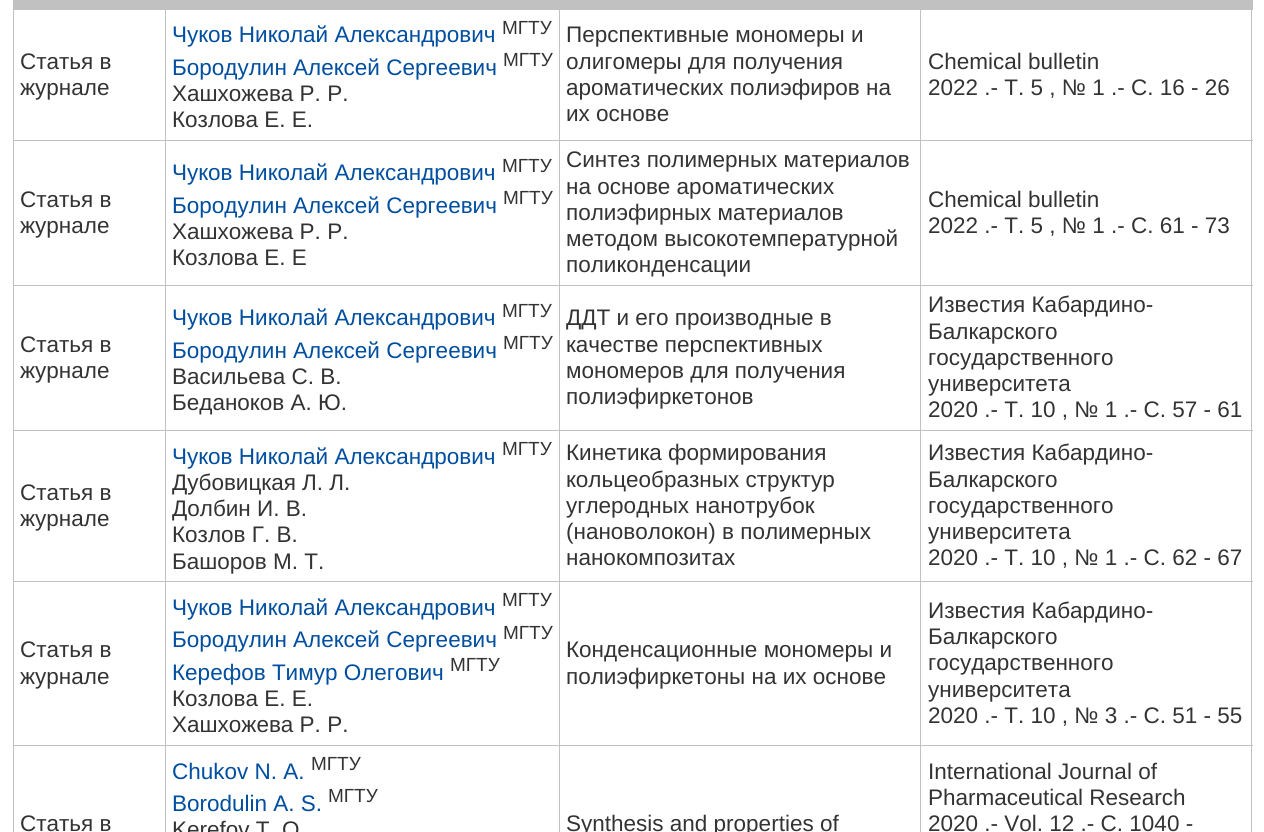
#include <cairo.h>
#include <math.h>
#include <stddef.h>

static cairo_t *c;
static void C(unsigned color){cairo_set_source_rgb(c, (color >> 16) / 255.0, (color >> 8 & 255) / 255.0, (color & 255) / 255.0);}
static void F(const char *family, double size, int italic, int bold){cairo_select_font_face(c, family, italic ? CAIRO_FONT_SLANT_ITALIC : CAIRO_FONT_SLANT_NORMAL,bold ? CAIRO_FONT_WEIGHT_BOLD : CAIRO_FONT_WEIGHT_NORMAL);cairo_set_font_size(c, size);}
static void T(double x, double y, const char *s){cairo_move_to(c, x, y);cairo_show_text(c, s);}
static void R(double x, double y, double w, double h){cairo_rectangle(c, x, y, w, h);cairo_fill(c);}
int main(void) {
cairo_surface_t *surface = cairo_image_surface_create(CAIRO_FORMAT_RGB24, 1264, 832);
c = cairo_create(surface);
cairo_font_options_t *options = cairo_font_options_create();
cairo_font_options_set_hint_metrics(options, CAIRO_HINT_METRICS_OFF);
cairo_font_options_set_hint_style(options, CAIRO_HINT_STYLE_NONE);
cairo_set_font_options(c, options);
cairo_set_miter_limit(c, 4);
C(0xffffff);
cairo_paint(c);
C(0xc1c1c1);
R(14,0,1239,9);
R(920,9,333,1);
R(920,140,333,1);
R(920,285,333,1);
R(920,430,333,1);
R(920,581,333,1);
R(920,745,333,1);
R(920,745,1,87);
R(559,745,362,1);
R(920,581,1,165);
R(559,581,362,1);
R(920,430,1,153);
R(559,430,362,1);
R(920,285,1,146);
R(559,285,362,1);
R(920,140,1,146);
R(559,140,362,1);
R(920,9,1,132);
R(559,9,362,1);
R(559,745,1,87);
R(165,745,395,1);
R(559,581,1,165);
R(165,581,395,1);
R(559,430,1,153);
R(165,430,395,1);
R(559,285,1,146);
R(165,285,395,1);
R(559,140,1,146);
R(165,140,395,1);
R(559,9,1,132);
R(165,9,395,1);
R(165,745,1,87);
R(13,745,153,1);
R(165,581,1,165);
R(13,581,153,1);
R(165,430,1,153);
R(13,430,153,1);
R(165,285,1,146);
R(13,285,153,1);
R(165,140,1,146);
R(13,140,153,1);
R(165,9,1,132);
R(13,9,153,1);
R(13,745,1,87);
R(13,581,1,165);
R(13,430,1,153);
R(13,285,1,146);
R(13,140,1,146);
R(13,0,1,141);
F("Liberation Sans",22.5,0,0);
C(0x333333);
T(20,69,"Статья в");
T(20,95,"журнале");
C(0x004e9f);
T(172,42,"Чуков Николай Александрович");
F("Liberation Sans",19,0,0);
C(0x333333);
T(502,34,"МГТУ");
F("Liberation Sans",22.5,0,0);
C(0x004e9f);
T(172,75,"Бородулин Алексей Сергеевич");
F("Liberation Sans",19,0,0);
C(0x333333);
T(503,66,"МГТУ");
F("Liberation Sans",22.5,0,0);
T(172,101,"Хашхожева Р. Р.");
T(172,127,"Козлова Е. Е.");
T(566,42,"Перспективные мономеры и");
T(566,69,"олигомеры для получения");
T(566,95,"ароматических полиэфиров на");
T(566,121,"их основе");
C(0xc1c1c1);
R(1251,745,1,87);
R(1251,581,1,165);
R(1251,430,1,153);
R(1251,285,1,146);
R(1251,140,1,146);
R(1251,9,1,132);
C(0x333333);
T(928,69,"Chemical bulletin");
T(928,95,"2022 .- Т. 5 , № 1 .- С. 16 - 26");
T(20,207,"Статья в");
T(20,233,"журнале");
C(0x004e9f);
T(172,180,"Чуков Николай Александрович");
F("Liberation Sans",19,0,0);
C(0x333333);
T(502,172,"МГТУ");
F("Liberation Sans",22.5,0,0);
C(0x004e9f);
T(172,213,"Бородулин Алексей Сергеевич");
F("Liberation Sans",19,0,0);
C(0x333333);
T(503,204,"МГТУ");
F("Liberation Sans",22.5,0,0);
T(172,239,"Хашхожева Р. Р.");
T(172,265,"Козлова Е. Е");
T(566,167,"Синтез полимерных материалов");
T(566,194,"на основе ароматических");
T(566,220,"полиэфирных материалов");
T(566,246,"методом высокотемпературной");
T(566,272,"поликонденсации");
T(928,207,"Chemical bulletin");
T(928,233,"2022 .- Т. 5 , № 1 .- С. 61 - 73");
T(20,352,"Статья в");
T(20,378,"журнале");
C(0x004e9f);
T(172,325,"Чуков Николай Александрович");
F("Liberation Sans",19,0,0);
C(0x333333);
T(502,317,"МГТУ");
F("Liberation Sans",22.5,0,0);
C(0x004e9f);
T(172,358,"Бородулин Алексей Сергеевич");
F("Liberation Sans",19,0,0);
C(0x333333);
T(503,349,"МГТУ");
F("Liberation Sans",22.5,0,0);
T(172,384,"Васильева С. В.");
T(172,410,"Беданоков А. Ю.");
T(566,325,"ДДТ и его производные в");
T(566,352,"качестве перспективных");
T(566,378,"мономеров для получения");
T(566,404,"полиэфиркетонов");
T(928,312,"Известия Кабардино-");
T(928,339,"Балкарского");
T(928,365,"государственного");
T(928,391,"университета");
T(928,417,"2020 .- Т. 10 , № 1 .- С. 57 - 61");
T(20,500,"Статья в");
T(20,526,"журнале");
C(0x004e9f);
T(172,464,"Чуков Николай Александрович");
F("Liberation Sans",19,0,0);
C(0x333333);
T(502,455,"МГТУ");
F("Liberation Sans",22.5,0,0);
T(172,490,"Дубовицкая Л. Л.");
T(172,516,"Долбин И. В.");
T(172,542,"Козлов Г. В.");
T(172,569,"Башоров М. Т.");
T(566,460,"Кинетика формирования");
T(566,487,"кольцеобразных структур");
T(566,513,"углеродных нанотрубок");
T(566,539,"(нановолокон) в полимерных");
T(566,565,"нанокомпозитах");
T(928,460,"Известия Кабардино-");
T(928,487,"Балкарского");
T(928,513,"государственного");
T(928,539,"университета");
T(928,565,"2020 .- Т. 10 , № 1 .- С. 62 - 67");
T(20,657,"Статья в");
T(20,684,"журнале");
C(0x004e9f);
T(172,615,"Чуков Николай Александрович");
F("Liberation Sans",19,0,0);
C(0x333333);
T(502,606,"МГТУ");
F("Liberation Sans",22.5,0,0);
C(0x004e9f);
T(172,647,"Бородулин Алексей Сергеевич");
F("Liberation Sans",19,0,0);
C(0x333333);
T(503,639,"МГТУ");
F("Liberation Sans",22.5,0,0);
C(0x004e9f);
T(172,680,"Керефов Тимур Олегович");
F("Liberation Sans",19,0,0);
C(0x333333);
T(450,671,"МГТУ");
F("Liberation Sans",22.5,0,0);
T(172,706,"Козлова Е. Е.");
T(172,732,"Хашхожева Р. Р.");
T(566,657,"Конденсационные мономеры и");
T(566,684,"полиэфиркетоны на их основе");
T(928,618,"Известия Кабардино-");
T(928,644,"Балкарского");
T(928,670,"государственного");
T(928,697,"университета");
T(928,723,"2020 .- Т. 10 , № 3 .- С. 51 - 55");
T(20,831,"Статья в");
C(0x004e9f);
T(172,779,"Chukov N. A.");
F("Liberation Sans",19,0,0);
C(0x333333);
T(311,770,"МГТУ");
F("Liberation Sans",22.5,0,0);
C(0x004e9f);
T(172,811,"Borodulin A. S.");
F("Liberation Sans",19,0,0);
C(0x333333);
T(328,802,"МГТУ");
F("Liberation Sans",22.5,0,0);
T(172,837,"Kerefov Т. O");
T(566,831,"Synthesis and properties of");
T(928,779,"International Journal of");
T(928,805,"Pharmaceutical Research");
T(928,831,"2020 .- Vol. 12 .- С. 1040 -");
cairo_surface_write_to_png(surface, "o.png");
cairo_font_options_destroy(options);
cairo_destroy(c);
cairo_surface_destroy(surface);
return 0;
}
